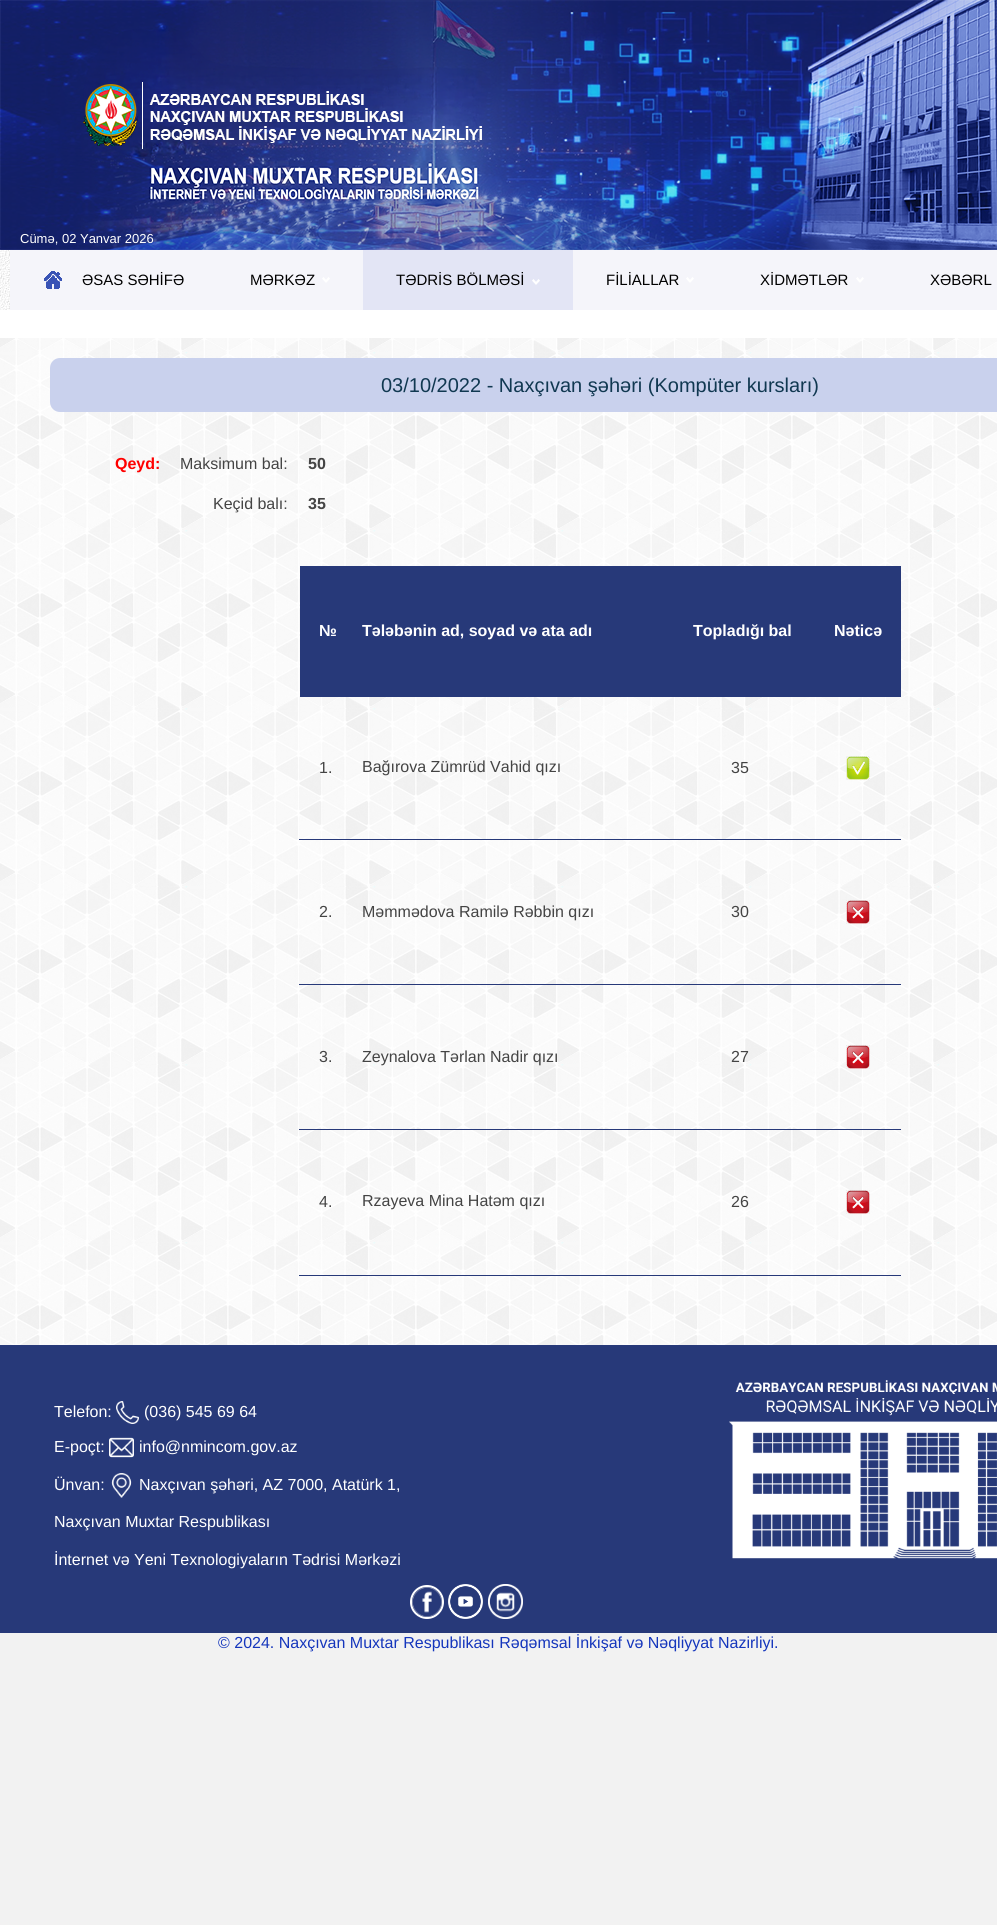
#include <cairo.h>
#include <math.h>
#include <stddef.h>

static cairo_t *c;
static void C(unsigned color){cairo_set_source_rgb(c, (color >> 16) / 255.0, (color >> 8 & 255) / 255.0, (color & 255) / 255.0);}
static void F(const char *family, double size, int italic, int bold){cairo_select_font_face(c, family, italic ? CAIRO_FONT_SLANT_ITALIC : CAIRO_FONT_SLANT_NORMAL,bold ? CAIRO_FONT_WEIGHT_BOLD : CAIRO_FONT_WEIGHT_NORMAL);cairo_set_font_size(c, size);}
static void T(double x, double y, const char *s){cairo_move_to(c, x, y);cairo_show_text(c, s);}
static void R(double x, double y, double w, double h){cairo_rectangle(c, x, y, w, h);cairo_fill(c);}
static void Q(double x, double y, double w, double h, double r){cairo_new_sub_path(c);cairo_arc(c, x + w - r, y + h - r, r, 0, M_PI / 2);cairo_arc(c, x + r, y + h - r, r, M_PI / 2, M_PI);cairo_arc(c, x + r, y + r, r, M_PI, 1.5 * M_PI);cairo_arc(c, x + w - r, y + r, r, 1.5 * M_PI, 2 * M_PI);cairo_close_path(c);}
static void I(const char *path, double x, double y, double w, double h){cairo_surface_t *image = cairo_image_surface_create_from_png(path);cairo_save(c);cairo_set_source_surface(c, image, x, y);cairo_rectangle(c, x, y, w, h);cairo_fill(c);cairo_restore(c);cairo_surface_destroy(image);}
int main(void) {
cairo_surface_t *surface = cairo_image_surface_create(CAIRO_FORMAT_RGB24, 997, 1925);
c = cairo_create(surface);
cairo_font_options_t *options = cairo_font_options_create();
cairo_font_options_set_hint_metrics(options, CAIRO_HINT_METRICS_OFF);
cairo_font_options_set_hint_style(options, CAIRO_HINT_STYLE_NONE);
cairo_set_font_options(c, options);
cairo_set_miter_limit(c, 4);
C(0xf2f2f2);
cairo_paint(c);
C(0xffffff);
R(0,310,997,28);
I("1.png",0,0,997,250);
F("Liberation Sans",13,0,0);
T(20,243,"Cümə, 02 Yanvar 2026");
I("2.png",0,250,10,60);
C(0xf5f5fa);
R(10,250,987,60);
I("3.png",44,271,18,18);
F("Liberation Sans",15,0,0);
C(0x000000);
T(82,285,"ƏSAS SƏHİFƏ");
I("4.png",322,277,8,6);
T(250,285,"MƏRKƏZ");
C(0xe3e5f5);
R(363,250,210,60);
I("5.png",532,279,8,6);
C(0x000000);
T(396,285,"TƏDRİS BÖLMƏSİ");
I("4.png",686,277,8,6);
T(606,285,"FİLİALLAR");
I("4.png",856,277,8,6);
T(760,285,"XİDMƏTLƏR");
T(930,285,"XƏBƏRL");
I("6.png",0,338,997,1007);
C(0xc9d1ed);
Q(50,358,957,54,10);
cairo_fill(c);
F("Liberation Sans",20,0,0);
C(0x103851);
T(381,392,"03/10/2022 - Naxçıvan şəhəri (Kompüter kursları)");
F("Liberation Sans",16,0,1);
C(0xff0000);
T(115,469,"Qeyd:");
F("Liberation Sans",16,0,0);
C(0x444444);
T(180,469,"Maksimum bal:");
F("Liberation Sans",16,0,1);
T(308,469,"50");
F("Liberation Sans",16,0,0);
T(213,509,"Keçid balı:");
F("Liberation Sans",16,0,1);
T(308,509,"35");
C(0x273979);
R(300,566,601,131);
C(0xffffff);
T(319,636,"№");
T(362,636,"Tələbənin ad, soyad və ata adı");
T(693,636,"Topladığı bal");
T(834,636,"Nəticə");
C(0x273979);
R(299,839,602,1);
F("Liberation Sans",16,0,0);
C(0x444444);
T(319,773,"1.");
T(362,772,"Bağırova Zümrüd Vahid qızı");
T(731,773,"35");
I("7.png",846,756,24,24);
C(0x273979);
R(299,984,602,1);
C(0x444444);
T(319,917,"2.");
T(362,917,"Məmmədova Ramilə Rəbbin qızı");
T(731,917,"30");
I("8.png",846,900,24,24);
C(0x273979);
R(299,1129,602,1);
C(0x444444);
T(319,1062,"3.");
T(362,1062,"Zeynalova Tərlan Nadir qızı");
T(731,1062,"27");
I("8.png",846,1045,24,24);
C(0x273979);
R(299,1275,602,1);
C(0x444444);
T(319,1207,"4.");
T(362,1206,"Rzayeva Mina Hatəm qızı");
T(731,1207,"26");
I("9.png",846,1190,24,24);
C(0x273979);
R(0,1345,997,288);
C(0xffffff);
T(54,1417,"Telefon:");
I("10.png",116,1401,23,23);
T(144,1417,"(036) 545 69 64");
T(54,1452,"E-poçt:");
I("11.png",109,1437,25,21);
T(139,1452,"info@nmincom.gov.az");
T(54,1490,"Ünvan:");
I("12.png",111,1473,21,25);
T(139,1490,"Naxçıvan şəhəri, AZ 7000, Atatürk 1,");
T(54,1527,"Naxçıvan Muxtar Respublikası");
T(54,1565,"İnternet və Yeni Texnologiyaların Tədrisi Mərkəzi");
cairo_new_path(c);
cairo_arc(c,427,1602,16,0,2 * M_PI);
cairo_stroke(c);
I("13.png",448,1584,35,35);
I("14.png",488,1584,35,35);
I("15.png",412,1587,30,30);
I("16.png",729,1380,268,179);
C(0x1536bc);
T(218,1648,"© 2024. Naxçıvan Muxtar Respublikası Rəqəmsal İnkişaf və Nəqliyyat Nazirliyi.");
cairo_surface_write_to_png(surface, "o.png");
cairo_font_options_destroy(options);
cairo_destroy(c);
cairo_surface_destroy(surface);
return 0;
}
